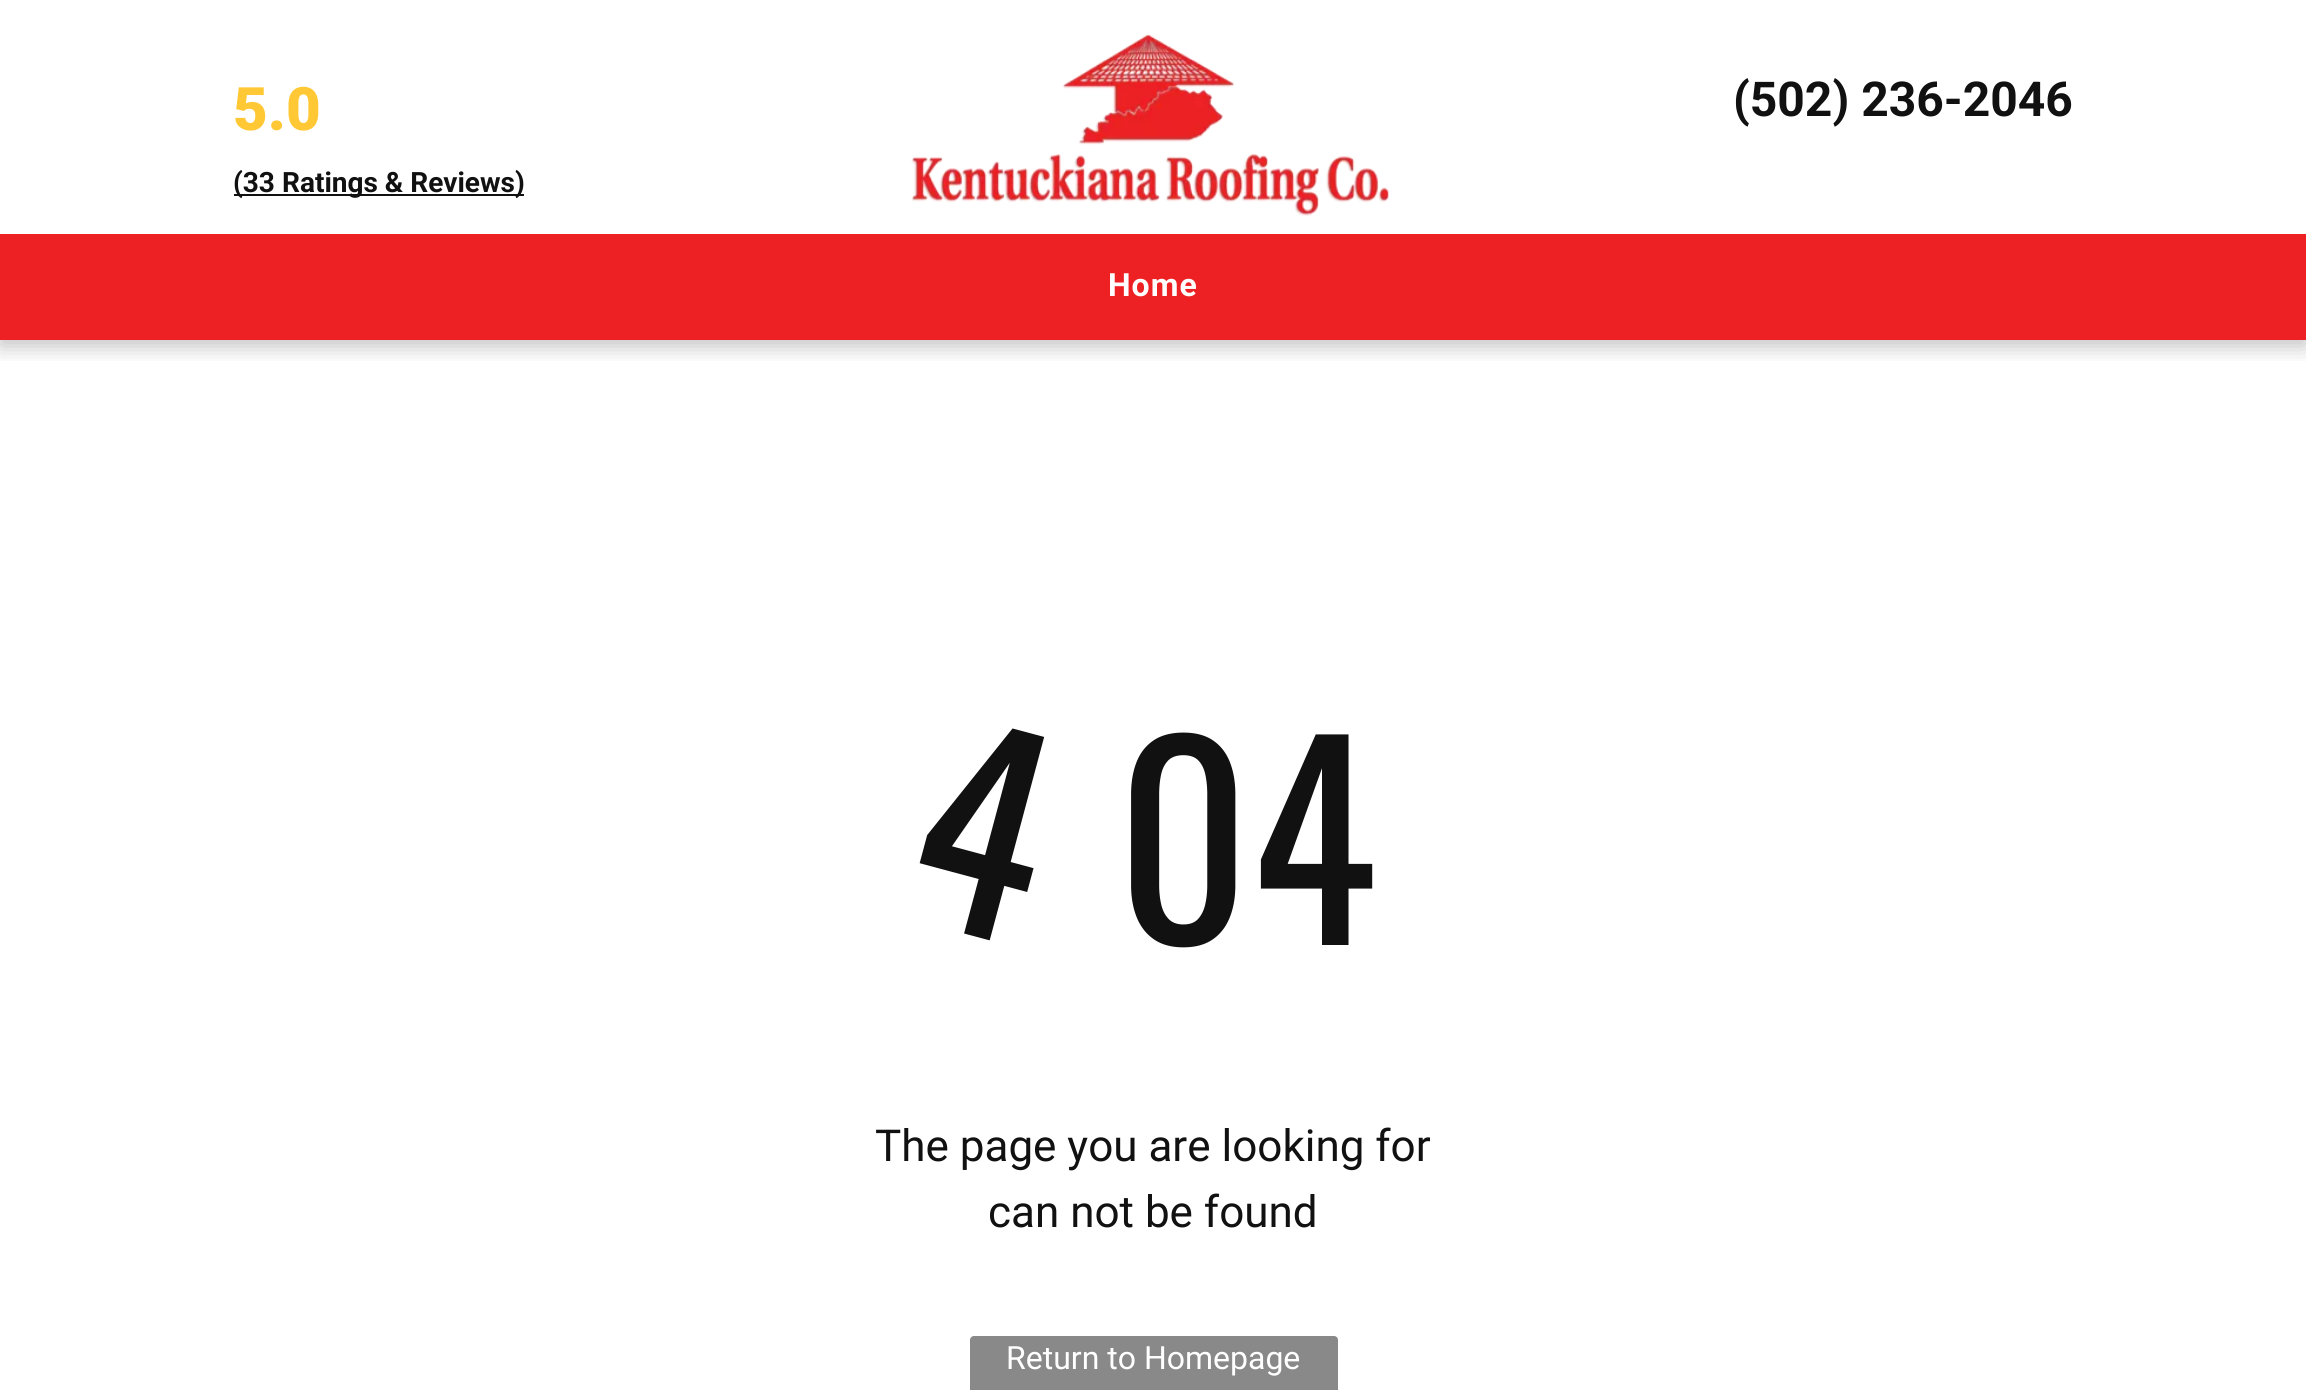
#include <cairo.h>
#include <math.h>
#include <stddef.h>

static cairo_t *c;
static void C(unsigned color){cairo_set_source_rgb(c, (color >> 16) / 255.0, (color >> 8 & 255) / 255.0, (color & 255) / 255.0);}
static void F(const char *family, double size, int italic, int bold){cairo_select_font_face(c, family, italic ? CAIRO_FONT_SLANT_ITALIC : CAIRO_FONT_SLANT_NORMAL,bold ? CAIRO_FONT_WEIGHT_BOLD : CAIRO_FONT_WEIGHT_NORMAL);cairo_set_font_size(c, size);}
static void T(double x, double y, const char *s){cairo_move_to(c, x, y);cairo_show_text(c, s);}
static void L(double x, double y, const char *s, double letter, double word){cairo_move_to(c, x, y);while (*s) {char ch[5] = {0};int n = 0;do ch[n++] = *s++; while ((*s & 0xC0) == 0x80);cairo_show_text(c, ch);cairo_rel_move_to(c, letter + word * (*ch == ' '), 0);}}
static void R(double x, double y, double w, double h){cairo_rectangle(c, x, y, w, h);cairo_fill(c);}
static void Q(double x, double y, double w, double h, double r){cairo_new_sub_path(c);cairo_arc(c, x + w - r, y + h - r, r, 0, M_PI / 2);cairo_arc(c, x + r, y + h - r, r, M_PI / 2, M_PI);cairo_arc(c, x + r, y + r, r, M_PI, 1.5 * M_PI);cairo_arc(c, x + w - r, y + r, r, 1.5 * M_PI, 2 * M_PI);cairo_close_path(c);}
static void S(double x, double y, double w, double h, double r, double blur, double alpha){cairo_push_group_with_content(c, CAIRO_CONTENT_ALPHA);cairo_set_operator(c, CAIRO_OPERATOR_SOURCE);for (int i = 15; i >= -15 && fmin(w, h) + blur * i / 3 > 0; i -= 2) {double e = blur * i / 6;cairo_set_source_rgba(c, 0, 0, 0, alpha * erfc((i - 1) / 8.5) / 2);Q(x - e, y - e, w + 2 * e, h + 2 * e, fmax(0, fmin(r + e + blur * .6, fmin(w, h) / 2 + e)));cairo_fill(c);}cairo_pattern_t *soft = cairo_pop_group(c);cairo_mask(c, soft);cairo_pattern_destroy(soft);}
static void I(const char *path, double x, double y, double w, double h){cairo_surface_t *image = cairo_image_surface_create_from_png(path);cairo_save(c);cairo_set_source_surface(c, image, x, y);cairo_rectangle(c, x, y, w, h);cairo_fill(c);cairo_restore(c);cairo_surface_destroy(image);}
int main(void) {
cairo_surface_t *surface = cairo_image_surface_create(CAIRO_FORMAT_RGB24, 2306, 1390);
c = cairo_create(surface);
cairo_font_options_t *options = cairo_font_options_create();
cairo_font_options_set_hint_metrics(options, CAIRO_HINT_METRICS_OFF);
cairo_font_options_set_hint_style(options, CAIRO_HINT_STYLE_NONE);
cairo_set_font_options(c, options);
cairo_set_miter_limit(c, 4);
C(0xffffff);
cairo_paint(c);
cairo_save(c);
cairo_rectangle(c,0,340,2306,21);
cairo_clip(c);
C(0x000000);
S(0,6,2306,340,0,11,.25);
cairo_restore(c);
F("Roboto Black",60,0,0);
C(0xffc834);
T(233,130,"5.0");
C(0x111111);
R(234,194,8,2);
F("Roboto",28,0,1);
T(233,192,"(33");
R(242,194,282,2);
T(282,192,"Ratings & Reviews)");
I("1.png",911,34,478,182);
F("Roboto",48,0,1);
T(1733,116,"(502) 236-2046");
C(0xed2124);
R(0,234,2306,106);
F("Roboto",32,0,1);
C(0xffffff);
L(1108,296,"Home",1,0);
F("Oswald",260,0,0);
C(0x111111);
cairo_save(c);
cairo_translate(c,895,915);
cairo_rotate(c,15 * M_PI / 180);
T(0,0,"4");
cairo_restore(c);
T(1116,945,"04");
F("Roboto",44,0,0);
T(875,1161,"The page you are looking for");
T(988,1227,"can not be found");
C(0x898989);
Q(970,1336,368,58,4);
cairo_fill(c);
F("Roboto",32,0,0);
C(0xffffff);
T(1006,1369,"Return to Homepage");
cairo_surface_write_to_png(surface, "o.png");
cairo_font_options_destroy(options);
cairo_destroy(c);
cairo_surface_destroy(surface);
return 0;
}
